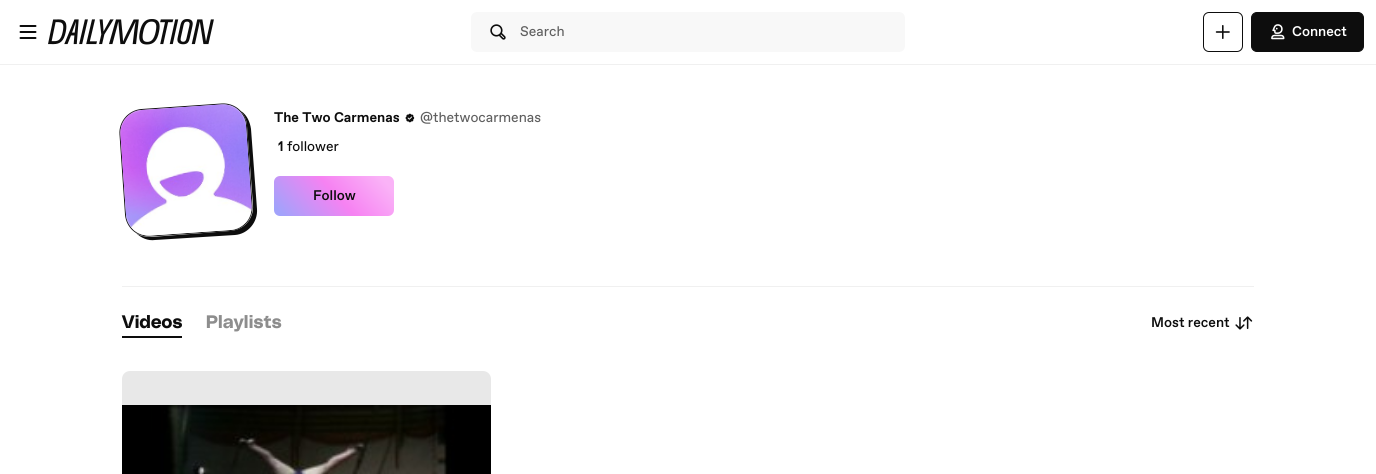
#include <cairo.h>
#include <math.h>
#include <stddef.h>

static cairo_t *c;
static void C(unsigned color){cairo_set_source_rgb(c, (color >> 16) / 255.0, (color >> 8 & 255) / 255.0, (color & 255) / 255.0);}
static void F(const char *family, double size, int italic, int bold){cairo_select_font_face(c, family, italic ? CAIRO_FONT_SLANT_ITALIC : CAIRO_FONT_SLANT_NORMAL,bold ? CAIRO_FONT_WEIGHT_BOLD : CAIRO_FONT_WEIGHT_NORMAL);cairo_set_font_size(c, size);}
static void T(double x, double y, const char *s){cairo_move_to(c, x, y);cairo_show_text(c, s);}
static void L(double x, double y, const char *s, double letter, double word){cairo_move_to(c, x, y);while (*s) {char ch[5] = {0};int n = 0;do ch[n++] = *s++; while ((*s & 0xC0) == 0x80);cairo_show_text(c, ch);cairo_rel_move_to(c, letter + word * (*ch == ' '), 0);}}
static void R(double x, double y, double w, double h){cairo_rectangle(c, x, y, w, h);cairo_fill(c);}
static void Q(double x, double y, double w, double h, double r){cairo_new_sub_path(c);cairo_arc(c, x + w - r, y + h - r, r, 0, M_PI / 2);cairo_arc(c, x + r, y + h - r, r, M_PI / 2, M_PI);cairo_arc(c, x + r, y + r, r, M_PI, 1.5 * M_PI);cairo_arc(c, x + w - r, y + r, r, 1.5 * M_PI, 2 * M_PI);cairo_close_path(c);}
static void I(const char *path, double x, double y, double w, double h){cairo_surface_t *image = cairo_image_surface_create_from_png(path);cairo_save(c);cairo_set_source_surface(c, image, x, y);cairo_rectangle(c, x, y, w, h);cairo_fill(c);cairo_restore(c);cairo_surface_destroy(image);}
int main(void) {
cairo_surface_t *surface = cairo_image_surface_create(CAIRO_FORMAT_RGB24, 1376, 474);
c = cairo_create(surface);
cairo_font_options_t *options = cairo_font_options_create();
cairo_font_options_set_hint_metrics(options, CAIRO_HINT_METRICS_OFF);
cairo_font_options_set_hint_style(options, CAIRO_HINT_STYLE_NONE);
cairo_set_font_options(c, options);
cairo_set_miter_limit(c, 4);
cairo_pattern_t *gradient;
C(0xffffff);
cairo_paint(c);
C(0xf0f0f0);
R(0,64,1376,1);
I("1.png",19,25,18,14);
I("2.png",48,19,166,26);
C(0xf8f8f8);
Q(471,12,434,40,6);
cairo_fill(c);
I("3.png",490,24,16,16);
F("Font",14,0,0);
C(0x606060);
T(520,36,"Search");
Q(1203.5,12.5,39,39,5.5);
C(0x0d0d0d);
cairo_set_line_width(c,1);
cairo_stroke(c);
I("4.png",1215,25,15,14);
Q(1251.5,12.5,112,39,5.5);
cairo_fill_preserve(c);
cairo_stroke(c);
I("5.png",1271,24,14,16);
F("Font Medium",14,0,0);
C(0xffffff);
T(1292,36,"Connect");
C(0xf0f0f0);
R(122,286,1132,1);
C(0x0d0d0d);
cairo_new_path(c);
cairo_move_to(c,136,233);
cairo_curve_to(c,141,238,148,241,155,240);
cairo_line_to(c,235,235);
cairo_curve_to(c,248,234,258,222,257,209);
cairo_line_to(c,251,129);
cairo_curve_to(c,250,122,247,115,241,111);
cairo_curve_to(c,244,115,247,120,247,126);
cairo_line_to(c,253,205);
cairo_curve_to(c,254,219,244,230,230,231);
cairo_line_to(c,151,237);
cairo_curve_to(c,145,237,140,236,136,233);
cairo_close_path(c);
cairo_fill(c);
cairo_new_path(c);
cairo_move_to(c,141.5,109.5);
cairo_line_to(c,221.5,104);
cairo_curve_to(c,234.5,103,245.5,112.5,246.5,125.5);
cairo_line_to(c,252,205.5);
cairo_curve_to(c,253,218.5,243.5,229.5,230.5,230.5);
cairo_line_to(c,150.5,236);
cairo_curve_to(c,137.5,237,126.5,227.5,125.5,214.5);
cairo_line_to(c,120,134.5);
cairo_curve_to(c,119,121.5,129,110.5,141.5,109.5);
cairo_close_path(c);
cairo_stroke(c);
I("6.png",120,104,132,132);
F("Font",14,0,1);
T(274,122,"The Two Carmenas");
I("7.png",405,113,10,10);
F("Font",14,0,0);
C(0x606060);
T(420,122,"@thetwocarmenas");
F("Font",14,0,1);
C(0x0d0d0d);
T(278,151,"1");
F("Font",14,0,0);
T(287,151,"follower");
gradient = cairo_pattern_create_linear(377,157,291,235);
cairo_pattern_add_color_stop_rgba(gradient,.09,0.98,0.702,0.969,1);
cairo_pattern_add_color_stop_rgba(gradient,.48,0.965,0.51,0.949,1);
cairo_pattern_add_color_stop_rgba(gradient,.94,0.635,0.635,0.984,1);
cairo_set_source(c,gradient);
cairo_pattern_destroy(gradient);
Q(274,176,120,40,6);
cairo_fill(c);
F("Font Medium",14,0,0);
C(0x0d0d0d);
T(313,200,"Follow");
R(122,336,60,2);
F("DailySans",18,0,1);
L(122,328,"Videos",.25,0);
C(0x8d8d8d);
L(206,328,"Playlists",.25,0);
F("Font Medium",14,0,0);
C(0x0d0d0d);
T(1151,327,"Most recent");
I("8.png",1235,316,18,14);
C(0xe8e8e8);
Q(122,371,369,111,8);
cairo_fill(c);
I("9.png",122,405,369,69);
cairo_surface_write_to_png(surface, "o.png");
cairo_font_options_destroy(options);
cairo_destroy(c);
cairo_surface_destroy(surface);
return 0;
}
